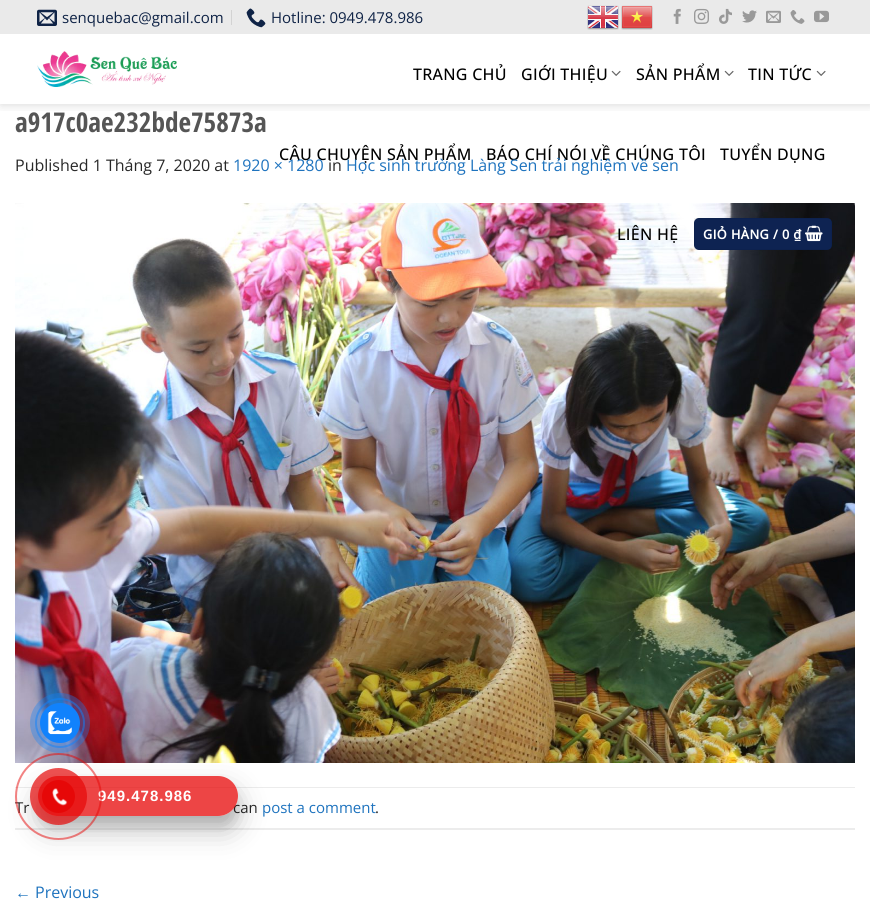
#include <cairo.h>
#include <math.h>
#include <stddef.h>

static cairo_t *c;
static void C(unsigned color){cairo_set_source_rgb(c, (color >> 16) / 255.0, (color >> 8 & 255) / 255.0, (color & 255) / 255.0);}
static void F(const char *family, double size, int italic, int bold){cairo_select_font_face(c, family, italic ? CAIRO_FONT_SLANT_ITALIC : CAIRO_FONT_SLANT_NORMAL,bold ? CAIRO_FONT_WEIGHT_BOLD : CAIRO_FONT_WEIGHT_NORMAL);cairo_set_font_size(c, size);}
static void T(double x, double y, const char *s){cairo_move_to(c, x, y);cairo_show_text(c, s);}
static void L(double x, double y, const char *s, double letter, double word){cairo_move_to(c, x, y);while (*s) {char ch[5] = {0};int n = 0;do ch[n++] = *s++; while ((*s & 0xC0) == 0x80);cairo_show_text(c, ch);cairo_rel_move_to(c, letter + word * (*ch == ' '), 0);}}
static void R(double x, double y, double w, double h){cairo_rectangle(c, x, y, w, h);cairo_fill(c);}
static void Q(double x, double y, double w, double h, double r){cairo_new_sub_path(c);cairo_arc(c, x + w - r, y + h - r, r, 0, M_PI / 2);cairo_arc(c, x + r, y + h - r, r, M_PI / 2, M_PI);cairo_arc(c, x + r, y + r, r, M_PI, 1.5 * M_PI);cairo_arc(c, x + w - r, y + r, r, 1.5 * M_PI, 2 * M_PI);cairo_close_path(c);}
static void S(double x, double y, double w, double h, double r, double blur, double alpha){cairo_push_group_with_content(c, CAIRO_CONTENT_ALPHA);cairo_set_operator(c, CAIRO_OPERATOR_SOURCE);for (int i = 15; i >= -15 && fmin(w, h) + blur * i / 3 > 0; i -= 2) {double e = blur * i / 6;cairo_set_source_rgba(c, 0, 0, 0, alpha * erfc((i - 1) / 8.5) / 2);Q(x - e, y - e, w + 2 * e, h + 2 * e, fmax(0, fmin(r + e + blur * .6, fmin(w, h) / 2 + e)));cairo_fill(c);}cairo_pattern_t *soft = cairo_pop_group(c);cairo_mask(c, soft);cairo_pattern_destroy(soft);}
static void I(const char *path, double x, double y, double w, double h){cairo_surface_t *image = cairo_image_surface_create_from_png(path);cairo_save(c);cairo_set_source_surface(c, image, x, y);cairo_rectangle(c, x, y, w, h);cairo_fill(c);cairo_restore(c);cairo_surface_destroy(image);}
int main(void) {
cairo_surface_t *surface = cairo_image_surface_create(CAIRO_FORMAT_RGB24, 870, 903);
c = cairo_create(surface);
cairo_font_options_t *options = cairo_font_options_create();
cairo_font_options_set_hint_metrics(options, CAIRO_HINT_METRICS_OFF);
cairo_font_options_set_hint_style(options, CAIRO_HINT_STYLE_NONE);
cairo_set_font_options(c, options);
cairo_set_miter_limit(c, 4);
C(0xffffff);
cairo_paint(c);
cairo_save(c);
cairo_rectangle(c,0,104,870,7);
cairo_clip(c);
C(0x000000);
S(1,1,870,104,0,5,.15);
cairo_restore(c);
C(0xeaeaea);
R(0,0,870,34);
I("1.png",37,9,20,17);
F("Open Sans",15,0,0);
C(0x0f2346);
T(62,23,"senquebac@gmail.com");
C(0xd3d3d3);
R(231,10,1,15);
I("2.png",246,8,20,20);
C(0x0f2346);
T(271,23,"Hotline: 0949.478.986");
I("3.png",587,5,32,25);
I("4.png",621,5,32,25);
I("5.png",673,8,8,16);
I("6.png",694,8,15,16);
I("7.png",719,8,13,16);
I("8.png",742,10,15,13);
I("9.png",766,10,15,13);
I("10.png",790,10,15,14);
I("11.png",814,10,15,13);
I("12.png",37,51,140,36);
F("Open Sans Medium",16,0,0);
C(0x000000);
L(413,80,"TRANG CHỦ",.3,0);
L(521,80,"GIỚI THIỆU",.3,0);
I("13.png",611,70,10,6);
L(636,80,"SẢN PHẨM",.3,0);
I("13.png",724,70,10,6);
L(748,80,"TIN TỨC",.3,0);
I("13.png",816,70,10,6);
L(279,160,"CÂU CHUYỆN SẢN PHẨM",.3,0);
L(486,160,"BÁO CHÍ NÓI VỀ CHÚNG TÔI",.3,0);
L(720,160,"TUYỂN DỤNG",.3,0);
I("15.png",15,203,840,560);
L(617,240,"LIÊN HỆ",.3,0);
C(0x0e2352);
Q(694,218,138,32,5);
cairo_fill(c);
cairo_rectangle(c,694.5,218.5,137,31);
cairo_set_source_rgba(c,0,0,0,0.05);
cairo_set_line_width(c,1);
cairo_stroke(c);
F("Open Sans",12.75,0,1);
C(0xffffff);
L(703,239,"GIỎ HÀNG / 0 ₫",.4,0);
I("14.png",805,225,18,17);
F("Open Sans Condensed",27.25,0,1);
C(0x555555);
T(15,132,"a917c0ae232bde75873a");
F("Open Sans",16,0,0);
C(0x282828);
T(15,171,"Published 1 Tháng 7, 2020 at");
C(0x1e73be);
T(233,171,"1920 × 1280");
C(0x282828);
T(328,171,"in");
C(0x1e73be);
T(346,171,"Học sinh trường Làng Sen trải nghiệm về sen");
C(0xececec);
R(15,787,840,1);
R(15,828,840,2);
F("Open Sans",15,0,0);
C(0x282828);
T(15,813,"Tr");
T(233,813,"can");
C(0x1e73be);
T(262,813,"post a comment");
C(0x282828);
T(375,813,".");
F("Liberation Sans",16,0,0);
C(0x1e73be);
T(15,898,"←");
F("Open Sans",16,0,0);
T(35,898,"Previous");
cairo_save(c);
cairo_set_fill_rule(c,CAIRO_FILL_RULE_EVEN_ODD);
cairo_new_path(c);
cairo_move_to(c,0,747);
cairo_line_to(c,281,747);
cairo_line_to(c,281,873);
cairo_line_to(c,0,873);
cairo_close_path(c);
cairo_move_to(c,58,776);
cairo_line_to(c,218,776);
cairo_curve_to(c,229,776,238,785,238,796);
cairo_curve_to(c,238,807,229,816,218,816);
cairo_line_to(c,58,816);
cairo_curve_to(c,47,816,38,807,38,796);
cairo_curve_to(c,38,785,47,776,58,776);
cairo_close_path(c);
cairo_clip(c);
C(0x000000);
S(38,790,200,40,20,14,.25);
cairo_restore(c);
cairo_arc(c,60,723,24,0,2 * M_PI);
cairo_set_source_rgba(c,0.067,0.51,0.988,0.5);
cairo_set_line_width(c,2);
cairo_stroke(c);
cairo_set_source_rgba(c,0.067,0.51,0.988,0.34);
cairo_arc(c,60,723,30,0,2 * M_PI);
cairo_fill(c);
C(0x1182fc);
cairo_arc(c,60,723,20,0,2 * M_PI);
cairo_fill(c);
I("16.png",47,711,25,24);
cairo_save(c);
cairo_set_fill_rule(c,CAIRO_FILL_RULE_EVEN_ODD);
cairo_new_path(c);
cairo_move_to(c,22,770);
cairo_line_to(c,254,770);
cairo_line_to(c,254,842);
cairo_line_to(c,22,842);
cairo_close_path(c);
cairo_move_to(c,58,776);
cairo_line_to(c,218,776);
cairo_curve_to(c,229,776,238,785,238,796);
cairo_curve_to(c,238,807,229,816,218,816);
cairo_line_to(c,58,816);
cairo_curve_to(c,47,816,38,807,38,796);
cairo_curve_to(c,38,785,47,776,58,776);
cairo_close_path(c);
cairo_clip(c);
C(0x000000);
S(38,786,200,40,20,5,.1);
cairo_restore(c);
cairo_set_source_rgba(c,0.902,0.031,0.031,0.75);
Q(38,776,200,40,20);
cairo_fill(c);
F("Liberation Sans",15,0,1);
C(0xffffff);
L(98,801,"949.478.986",1,0);
cairo_new_path(c);
cairo_arc(c,58.5,796.5,42.5,0,2 * M_PI);
cairo_set_source_rgba(c,0.902,0.031,0.031,0.5);
cairo_stroke(c);
cairo_set_source_rgba(c,0.902,0.031,0.031,0.7);
cairo_arc(c,58.5,796.5,28.5,0,2 * M_PI);
cairo_fill(c);
C(0xe60808);
cairo_arc(c,58.5,796.5,16.5,0,2 * M_PI);
cairo_fill(c);
I("17.png",52,788,16,18);
cairo_surface_write_to_png(surface, "o.png");
cairo_font_options_destroy(options);
cairo_destroy(c);
cairo_surface_destroy(surface);
return 0;
}
